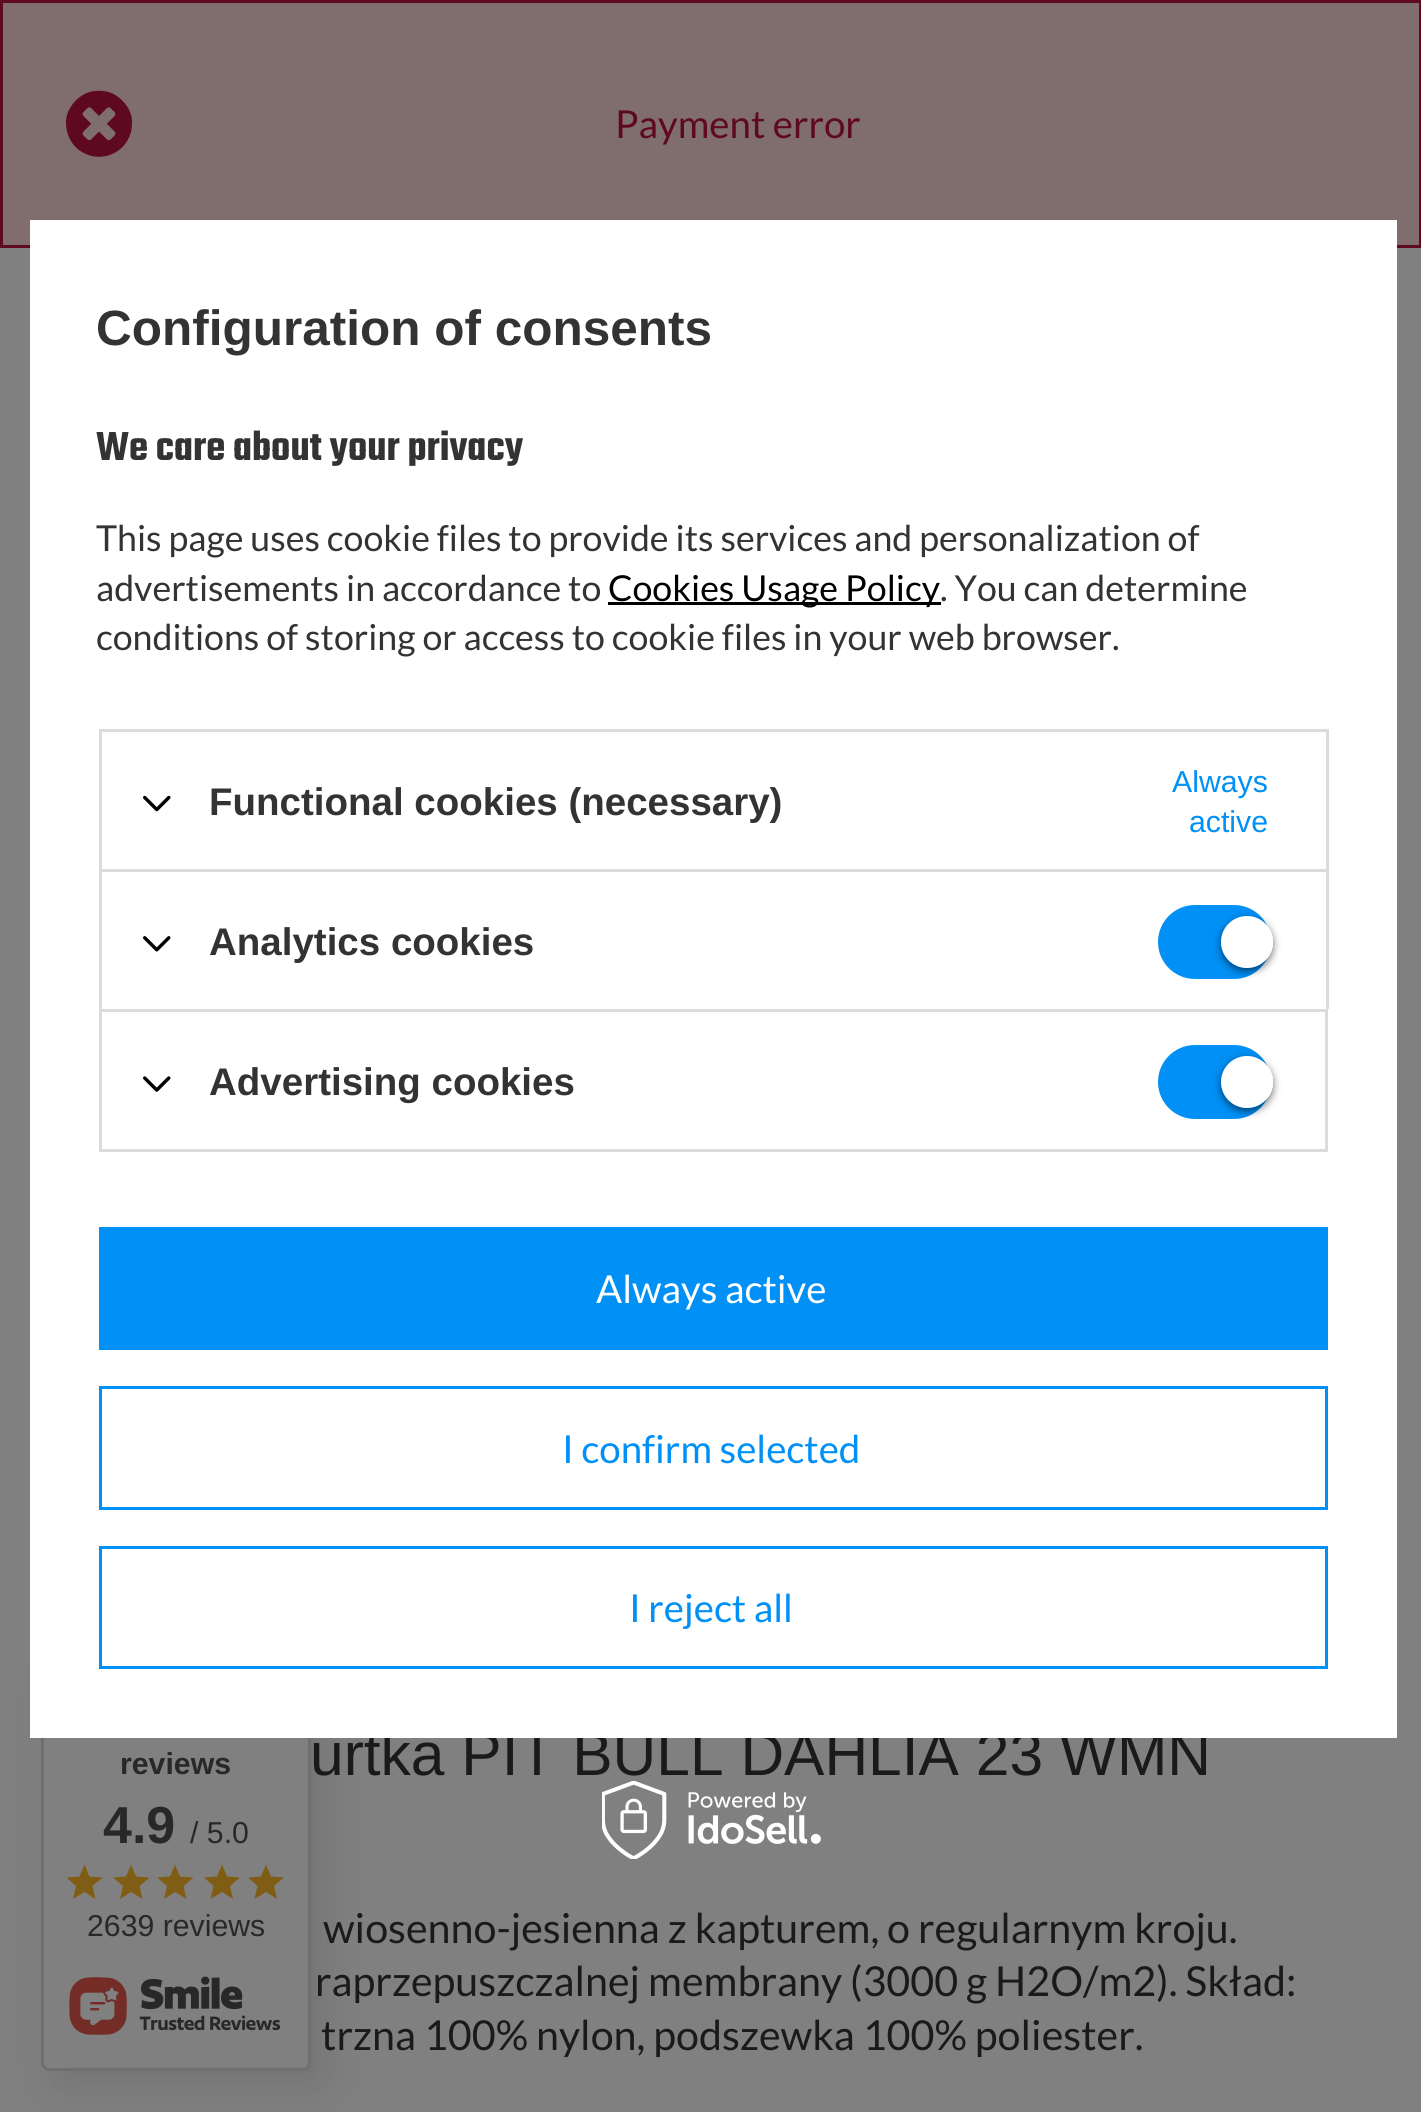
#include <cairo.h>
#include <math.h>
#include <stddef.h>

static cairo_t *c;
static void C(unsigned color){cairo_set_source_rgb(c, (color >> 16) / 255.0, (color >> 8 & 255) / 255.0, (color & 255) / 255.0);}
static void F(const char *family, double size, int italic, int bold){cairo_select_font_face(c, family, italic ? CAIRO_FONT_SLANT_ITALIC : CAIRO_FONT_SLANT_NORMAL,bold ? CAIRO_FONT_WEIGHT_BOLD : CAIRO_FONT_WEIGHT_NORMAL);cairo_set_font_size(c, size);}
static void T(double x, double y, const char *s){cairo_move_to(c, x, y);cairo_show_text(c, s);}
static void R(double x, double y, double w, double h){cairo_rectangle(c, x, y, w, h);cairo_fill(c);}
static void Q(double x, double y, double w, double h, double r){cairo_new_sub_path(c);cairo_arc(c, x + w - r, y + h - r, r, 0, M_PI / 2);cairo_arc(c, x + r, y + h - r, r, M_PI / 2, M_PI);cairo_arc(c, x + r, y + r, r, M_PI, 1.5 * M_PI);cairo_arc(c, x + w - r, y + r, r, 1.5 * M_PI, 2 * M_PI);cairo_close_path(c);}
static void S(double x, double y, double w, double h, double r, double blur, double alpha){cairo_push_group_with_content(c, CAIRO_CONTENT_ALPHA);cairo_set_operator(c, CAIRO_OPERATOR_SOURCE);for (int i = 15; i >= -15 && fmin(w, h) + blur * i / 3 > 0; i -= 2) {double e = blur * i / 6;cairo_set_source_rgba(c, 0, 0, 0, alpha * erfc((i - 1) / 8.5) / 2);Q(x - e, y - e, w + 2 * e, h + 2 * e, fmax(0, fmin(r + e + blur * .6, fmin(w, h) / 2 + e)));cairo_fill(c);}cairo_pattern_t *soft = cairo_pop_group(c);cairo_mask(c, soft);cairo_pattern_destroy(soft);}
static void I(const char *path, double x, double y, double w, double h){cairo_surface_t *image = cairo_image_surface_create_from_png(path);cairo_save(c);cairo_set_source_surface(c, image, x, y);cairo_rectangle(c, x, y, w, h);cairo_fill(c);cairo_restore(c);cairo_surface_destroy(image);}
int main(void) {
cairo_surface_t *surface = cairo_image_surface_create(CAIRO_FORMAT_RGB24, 1421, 2112);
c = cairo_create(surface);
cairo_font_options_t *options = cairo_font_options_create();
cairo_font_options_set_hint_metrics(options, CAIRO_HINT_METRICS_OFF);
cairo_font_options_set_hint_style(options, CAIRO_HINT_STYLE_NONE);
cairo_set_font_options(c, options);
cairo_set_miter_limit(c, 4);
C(0x808080);
cairo_paint(c);
C(0x806e6f);
cairo_rectangle(c,1.5,1.5,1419,245);
cairo_fill_preserve(c);
C(0x5f091e);
cairo_set_line_width(c,3);
cairo_stroke(c);
I("1.png",66,90,66,67);
F("Lato",38.5,0,0);
T(615,138,"Payment error");
C(0x000000);
S(55,1680,270,405,8,20.5,.1);
C(0x808080);
Q(42.5,1668.5,267,401,6.5);
cairo_fill_preserve(c);
C(0x6f6f6f);
cairo_stroke(c);
F("Liberation Sans",60.5,0,0);
C(0x1a1a1a);
T(310,1775,"urtka PIT BULL DAHLIA 23 WMN");
C(0xffffff);
R(30,220,1367,1518);
F("Liberation Sans",49.5,0,1);
C(0x333333);
T(96,345,"Configuration of consents");
F("Teko SemiBold",44,0,0);
T(96,460,"We care about your privacy");
F("Lato",35.75,0,0);
T(96,551,"This page uses cookie files to provide its services and personalization of");
T(96,601,"advertisements in accordance to");
C(0x000000);
R(608,602,333,3);
T(608,601,"Cookies Usage Policy");
C(0x333333);
T(940,601,". You can determine");
T(96,650,"conditions of storing or access to cookie files in your web browser.");
C(0xdbdbdb);
R(99,729,1229,3);
R(1326,729,3,140);
R(99,729,3,140);
I("2.png",143,795,28,17);
F("Liberation Sans",38.5,0,1);
C(0x333333);
T(209,815,"Functional cookies (necessary)");
F("Liberation Sans",30.25,0,0);
C(0x0090f6);
T(1172,792,"Always");
T(1189,832,"active");
C(0xdbdbdb);
R(99,869,1229,3);
R(1326,869,3,140);
R(99,869,3,140);
I("3.png",143,936,28,16);
F("Liberation Sans",38.5,0,1);
C(0x333333);
T(209,955,"Analytics cookies");
C(0x0090f6);
Q(1158,905,113,74,37);
cairo_fill(c);
cairo_save(c);
cairo_set_fill_rule(c,CAIRO_FILL_RULE_EVEN_ODD);
cairo_new_path(c);
cairo_move_to(c,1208,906);
cairo_line_to(c,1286,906);
cairo_line_to(c,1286,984);
cairo_line_to(c,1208,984);
cairo_close_path(c);
cairo_move_to(c,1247,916);
cairo_curve_to(c,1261.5,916,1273,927.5,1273,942);
cairo_curve_to(c,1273,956.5,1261.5,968,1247,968);
cairo_curve_to(c,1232.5,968,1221,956.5,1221,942);
cairo_curve_to(c,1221,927.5,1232.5,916,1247,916);
cairo_close_path(c);
cairo_clip(c);
C(0x000000);
S(1221,919,52,52,26,4,.56);
cairo_restore(c);
C(0xffffff);
cairo_arc(c,1247,942,26,0,2 * M_PI);
cairo_fill(c);
cairo_rectangle(c,100.5,1010.5,1226,140);
C(0xdbdbdb);
cairo_stroke(c);
I("4.png",143,1076,28,16);
C(0x333333);
T(209,1095,"Advertising cookies");
C(0x0090f6);
Q(1158,1045,113,74,37);
cairo_fill(c);
cairo_save(c);
cairo_set_fill_rule(c,CAIRO_FILL_RULE_EVEN_ODD);
cairo_new_path(c);
cairo_move_to(c,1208,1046);
cairo_line_to(c,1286,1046);
cairo_line_to(c,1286,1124);
cairo_line_to(c,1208,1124);
cairo_close_path(c);
cairo_move_to(c,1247,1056);
cairo_curve_to(c,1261.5,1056,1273,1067.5,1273,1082);
cairo_curve_to(c,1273,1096.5,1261.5,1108,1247,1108);
cairo_curve_to(c,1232.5,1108,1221,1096.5,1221,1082);
cairo_curve_to(c,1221,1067.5,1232.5,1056,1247,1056);
cairo_close_path(c);
cairo_clip(c);
C(0x000000);
S(1221,1059,52,52,26,4,.56);
cairo_restore(c);
C(0xffffff);
cairo_arc(c,1247,1082,26,0,2 * M_PI);
cairo_fill(c);
C(0x0090f6);
R(99,1227,1229,123);
F("Lato",38.5,0,0);
C(0xffffff);
T(596,1303,"Always active");
cairo_rectangle(c,100.5,1387.5,1226,121);
C(0x0090f6);
cairo_stroke(c);
T(562,1463,"I confirm selected");
cairo_rectangle(c,100.5,1547.5,1226,120);
cairo_stroke(c);
T(629,1622,"I reject all");
I("5.png",602,1781,219,78);
F("Liberation Sans",30.25,0,1);
C(0x282828);
T(120,1774,"reviews");
F("Liberation Sans",52,0,1);
T(103,1843,"4.9");
F("Liberation Sans",30.25,0,0);
T(190,1843,"/ 5.0");
C(0x805d14);
cairo_new_path(c);
cairo_move_to(c,73,1899);
cairo_line_to(c,76,1886);
cairo_line_to(c,66.5,1877.5);
cairo_line_to(c,79.5,1876.5);
cairo_line_to(c,84.5,1864.5);
cairo_line_to(c,89.5,1876.5);
cairo_line_to(c,102.5,1877.5);
cairo_line_to(c,92.5,1886);
cairo_line_to(c,95.5,1899);
cairo_line_to(c,84.5,1892);
cairo_close_path(c);
cairo_fill(c);
cairo_new_path(c);
cairo_move_to(c,120,1899);
cairo_line_to(c,123,1886);
cairo_line_to(c,113,1877.5);
cairo_line_to(c,126,1876.5);
cairo_line_to(c,131,1864.5);
cairo_line_to(c,136,1876.5);
cairo_line_to(c,149.5,1877.5);
cairo_line_to(c,139.5,1886);
cairo_line_to(c,142.5,1899);
cairo_line_to(c,131,1892);
cairo_close_path(c);
cairo_fill(c);
cairo_new_path(c);
cairo_move_to(c,164,1899);
cairo_line_to(c,167,1886);
cairo_line_to(c,157,1877.5);
cairo_line_to(c,170,1876.5);
cairo_line_to(c,175,1864.5);
cairo_line_to(c,180,1876.5);
cairo_line_to(c,193.5,1877.5);
cairo_line_to(c,183.5,1886);
cairo_line_to(c,186.5,1899);
cairo_line_to(c,175,1892);
cairo_close_path(c);
cairo_fill(c);
cairo_new_path(c);
cairo_move_to(c,210.5,1899);
cairo_line_to(c,213.5,1886);
cairo_line_to(c,204,1877.5);
cairo_line_to(c,217,1876.5);
cairo_line_to(c,222,1864.5);
cairo_line_to(c,227,1876.5);
cairo_line_to(c,240,1877.5);
cairo_line_to(c,230,1886);
cairo_line_to(c,233,1899);
cairo_line_to(c,222,1892);
cairo_close_path(c);
cairo_fill(c);
cairo_new_path(c);
cairo_move_to(c,254.5,1899);
cairo_line_to(c,257.5,1886);
cairo_line_to(c,248,1877.5);
cairo_line_to(c,261,1876.5);
cairo_line_to(c,266,1864.5);
cairo_line_to(c,271,1876.5);
cairo_line_to(c,284,1877.5);
cairo_line_to(c,274,1886);
cairo_line_to(c,277,1899);
cairo_line_to(c,266,1892);
cairo_close_path(c);
cairo_fill(c);
C(0x282828);
T(87,1936,"2639 reviews");
I("6.png",69,1976,212,59);
F("Lato",41.25,0,0);
C(0x1a1a1a);
T(323,1943,"wiosenno-jesienna z kapturem, o regularnym kroju.");
T(315,1996,"raprzepuszczalnej membrany (3000 g H2O/m2). Skład:");
T(321,2050,"trzna 100% nylon, podszewka 100% poliester.");
cairo_surface_write_to_png(surface, "o.png");
cairo_font_options_destroy(options);
cairo_destroy(c);
cairo_surface_destroy(surface);
return 0;
}
